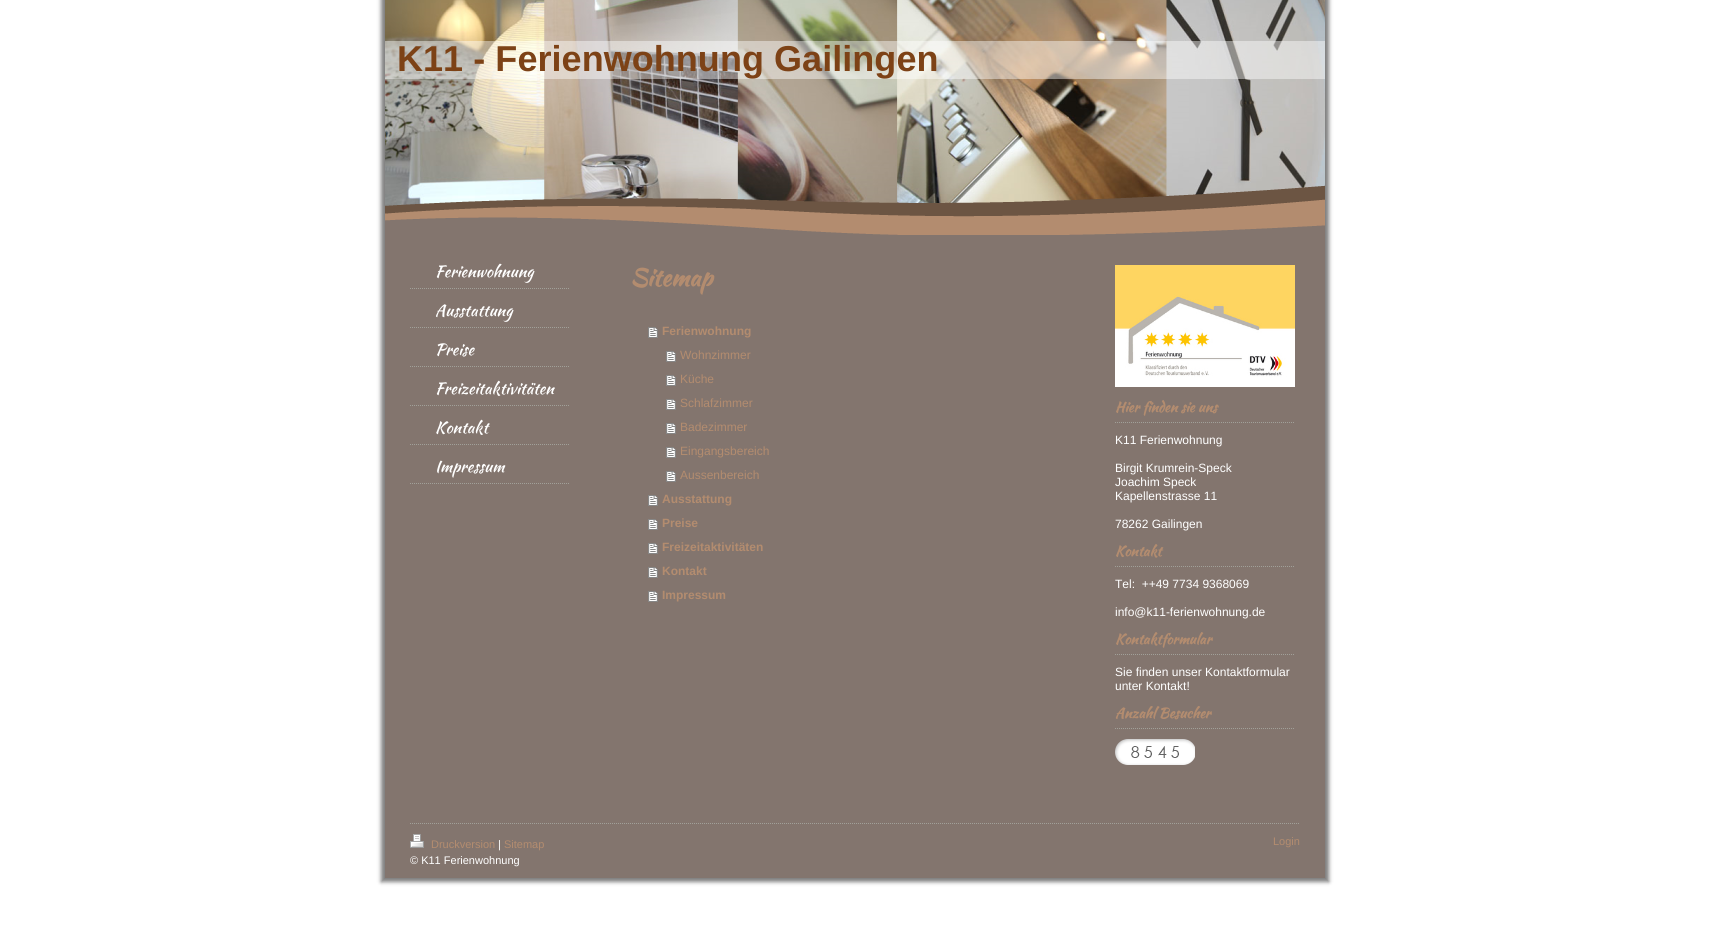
#include <cairo.h>
#include <math.h>
#include <stddef.h>

static cairo_t *c;
static void C(unsigned color){cairo_set_source_rgb(c, (color >> 16) / 255.0, (color >> 8 & 255) / 255.0, (color & 255) / 255.0);}
static void F(const char *family, double size, int italic, int bold){cairo_select_font_face(c, family, italic ? CAIRO_FONT_SLANT_ITALIC : CAIRO_FONT_SLANT_NORMAL,bold ? CAIRO_FONT_WEIGHT_BOLD : CAIRO_FONT_WEIGHT_NORMAL);cairo_set_font_size(c, size);}
static void T(double x, double y, const char *s){cairo_move_to(c, x, y);cairo_show_text(c, s);}
static void L(double x, double y, const char *s, double letter, double word){cairo_move_to(c, x, y);while (*s) {char ch[5] = {0};int n = 0;do ch[n++] = *s++; while ((*s & 0xC0) == 0x80);cairo_show_text(c, ch);cairo_rel_move_to(c, letter + word * (*ch == ' '), 0);}}
static void R(double x, double y, double w, double h){cairo_rectangle(c, x, y, w, h);cairo_fill(c);}
static void Q(double x, double y, double w, double h, double r){cairo_new_sub_path(c);cairo_arc(c, x + w - r, y + h - r, r, 0, M_PI / 2);cairo_arc(c, x + r, y + h - r, r, M_PI / 2, M_PI);cairo_arc(c, x + r, y + r, r, M_PI, 1.5 * M_PI);cairo_arc(c, x + w - r, y + r, r, 1.5 * M_PI, 2 * M_PI);cairo_close_path(c);}
static void S(double x, double y, double w, double h, double r, double blur, double alpha){cairo_push_group_with_content(c, CAIRO_CONTENT_ALPHA);cairo_set_operator(c, CAIRO_OPERATOR_SOURCE);for (int i = 15; i >= -15 && fmin(w, h) + blur * i / 3 > 0; i -= 2) {double e = blur * i / 6;cairo_set_source_rgba(c, 0, 0, 0, alpha * erfc((i - 1) / 8.5) / 2);Q(x - e, y - e, w + 2 * e, h + 2 * e, fmax(0, fmin(r + e + blur * .6, fmin(w, h) / 2 + e)));cairo_fill(c);}cairo_pattern_t *soft = cairo_pop_group(c);cairo_mask(c, soft);cairo_pattern_destroy(soft);}
static void I(const char *path, double x, double y, double w, double h){cairo_surface_t *image = cairo_image_surface_create_from_png(path);cairo_save(c);cairo_set_source_surface(c, image, x, y);cairo_rectangle(c, x, y, w, h);cairo_fill(c);cairo_restore(c);cairo_surface_destroy(image);}
int main(void) {
cairo_surface_t *surface = cairo_image_surface_create(CAIRO_FORMAT_RGB24, 1709, 936);
c = cairo_create(surface);
cairo_font_options_t *options = cairo_font_options_create();
cairo_font_options_set_hint_metrics(options, CAIRO_HINT_METRICS_OFF);
cairo_font_options_set_hint_style(options, CAIRO_HINT_STYLE_NONE);
cairo_set_font_options(c, options);
cairo_set_miter_limit(c, 4);
C(0xffffff);
cairo_paint(c);
C(0x000000);
S(381,-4,948,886,0,2,.5);
C(0x83756e);
R(385,213,940,665);
I("1.png",385,0,940,206);
cairo_set_source_rgba(c,1,1,1,0.44);
R(385,41,940,38);
F("Liberation Sans",36,0,1);
C(0x7d4216);
L(397,71,"K11 - Ferienwohnung Gailingen",.05,0);
I("2.png",385,185,940,50);
cairo_new_path(c);
cairo_move_to(c,410,288.5);
cairo_line_to(c,570,288.5);
C(0xa1a099);
cairo_set_line_width(c,1);
cairo_set_dash(c,(double[]){1,1},2,0);
cairo_stroke(c);
F("Kaushan Script",16,0,0);
C(0xffffff);
T(435,277,"Ferienwohnung");
cairo_new_path(c);
cairo_move_to(c,410,327.5);
cairo_line_to(c,570,327.5);
C(0xa1a099);
cairo_stroke(c);
C(0xffffff);
T(435,316,"Ausstattung");
cairo_new_path(c);
cairo_move_to(c,410,366.5);
cairo_line_to(c,570,366.5);
C(0xa1a099);
cairo_stroke(c);
C(0xffffff);
T(435,355,"Preise");
cairo_new_path(c);
cairo_move_to(c,410,405.5);
cairo_line_to(c,570,405.5);
C(0xa1a099);
cairo_stroke(c);
C(0xffffff);
T(435,394,"Freizeitaktivitäten");
cairo_new_path(c);
cairo_move_to(c,410,444.5);
cairo_line_to(c,570,444.5);
C(0xa1a099);
cairo_stroke(c);
C(0xffffff);
T(435,433,"Kontakt");
cairo_new_path(c);
cairo_move_to(c,410,483.5);
cairo_line_to(c,570,483.5);
C(0xa1a099);
cairo_stroke(c);
C(0xffffff);
T(435,472,"Impressum");
F("Kaushan Script",24,0,1);
C(0xb38c6f);
T(630,286,"Sitemap");
I("3.png",648,327,10,11);
F("Liberation Sans",12,0,1);
T(662,335,"Ferienwohnung");
I("3.png",666,351,10,11);
F("Liberation Sans",12,0,0);
T(680,359,"Wohnzimmer");
I("3.png",666,375,10,11);
T(680,383,"Küche");
I("3.png",666,399,10,11);
T(680,407,"Schlafzimmer");
I("3.png",666,423,10,11);
T(680,431,"Badezimmer");
I("3.png",666,447,10,11);
T(680,455,"Eingangsbereich");
I("3.png",666,471,10,11);
T(680,479,"Aussenbereich");
I("3.png",648,495,10,11);
F("Liberation Sans",12,0,1);
T(662,503,"Ausstattung");
I("3.png",648,519,10,11);
T(662,527,"Preise");
I("3.png",648,543,10,11);
T(662,551,"Freizeitaktivitäten");
I("3.png",648,567,10,11);
T(662,575,"Kontakt");
I("3.png",648,591,10,11);
T(662,599,"Impressum");
I("4.png",1115,265,180,122);
cairo_new_path(c);
cairo_move_to(c,1115,422.5);
cairo_line_to(c,1295,422.5);
C(0xa1a099);
cairo_stroke(c);
F("Kaushan Script",14,0,1);
C(0xb38c6f);
T(1115,412,"Hier finden sie uns");
F("Liberation Sans",12,0,0);
C(0xffffff);
T(1115,444,"K11 Ferienwohnung");
T(1115,472,"Birgit Krumrein-Speck");
T(1115,486,"Joachim Speck");
T(1115,500,"Kapellenstrasse 11");
T(1115,528,"78262 Gailingen");
cairo_new_path(c);
cairo_move_to(c,1115,566.5);
cairo_line_to(c,1295,566.5);
C(0xa1a099);
cairo_stroke(c);
F("Kaushan Script",14,0,1);
C(0xb38c6f);
T(1115,556,"Kontakt");
F("Liberation Sans",12,0,0);
C(0xffffff);
T(1115,588,"Tel:  ++49 7734 9368069");
T(1115,616,"info@k11-ferienwohnung.de");
cairo_new_path(c);
cairo_move_to(c,1115,654.5);
cairo_line_to(c,1295,654.5);
C(0xa1a099);
cairo_stroke(c);
F("Kaushan Script",14,0,1);
C(0xb38c6f);
T(1115,644,"Kontaktformular");
F("Liberation Sans",12,0,0);
C(0xffffff);
T(1115,676,"Sie finden unser Kontaktformular");
T(1115,690,"unter Kontakt!");
cairo_new_path(c);
cairo_move_to(c,1115,728.5);
cairo_line_to(c,1295,728.5);
C(0xa1a099);
cairo_stroke(c);
F("Kaushan Script",14,0,1);
C(0xb38c6f);
T(1115,718,"Anzahl Besucher");
I("5.png",1115,739,14,26);
I("6.png",1129,739,13,26);
I("7.png",1142,739,14,26);
I("8.png",1156,739,13,26);
I("7.png",1169,739,14,26);
I("9.png",1183,739,12,26);
cairo_new_path(c);
cairo_move_to(c,410,823.5);
cairo_line_to(c,1300,823.5);
C(0xa1a099);
cairo_stroke(c);
I("10.png",410,834,14,14);
F("Liberation Sans",11,0,0);
C(0xb38c6f);
T(431,848,"Druckversion");
C(0xffffff);
T(498,848,"|");
C(0xb38c6f);
T(504,848,"Sitemap");
cairo_save(c);
cairo_rectangle(c,410,834,890,34);
cairo_clip(c);
C(0xffffff);
T(410,864,"© K11 Ferienwohnung");
cairo_restore(c);
T(1273,845,"Login");
cairo_surface_write_to_png(surface, "o.png");
cairo_font_options_destroy(options);
cairo_destroy(c);
cairo_surface_destroy(surface);
return 0;
}
